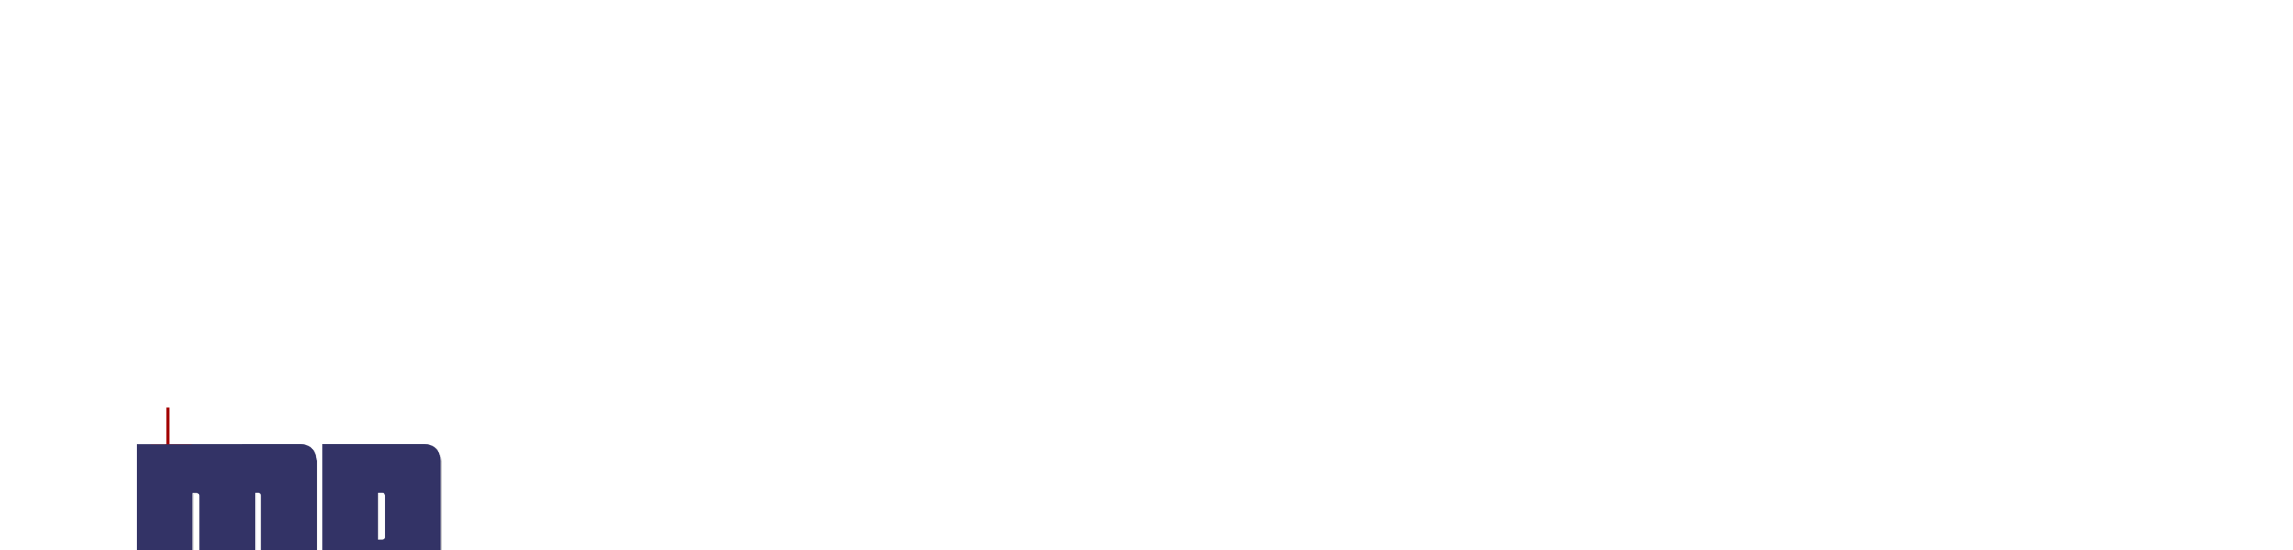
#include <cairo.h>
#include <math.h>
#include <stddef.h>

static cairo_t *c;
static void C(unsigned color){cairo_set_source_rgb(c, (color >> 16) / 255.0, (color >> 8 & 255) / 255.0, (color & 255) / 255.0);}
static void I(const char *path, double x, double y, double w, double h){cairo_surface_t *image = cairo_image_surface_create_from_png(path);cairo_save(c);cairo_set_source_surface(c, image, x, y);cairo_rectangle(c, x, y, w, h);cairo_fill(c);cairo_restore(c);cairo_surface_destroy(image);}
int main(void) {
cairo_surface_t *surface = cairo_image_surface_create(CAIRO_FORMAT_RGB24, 2293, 550);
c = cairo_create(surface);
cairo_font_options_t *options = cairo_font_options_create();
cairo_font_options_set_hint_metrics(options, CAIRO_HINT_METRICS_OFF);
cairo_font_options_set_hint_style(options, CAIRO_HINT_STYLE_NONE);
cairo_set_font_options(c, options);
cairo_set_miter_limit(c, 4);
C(0xffffff);
cairo_paint(c);
I("1.png",136,407,306,143);
cairo_surface_write_to_png(surface, "o.png");
cairo_font_options_destroy(options);
cairo_destroy(c);
cairo_surface_destroy(surface);
return 0;
}
